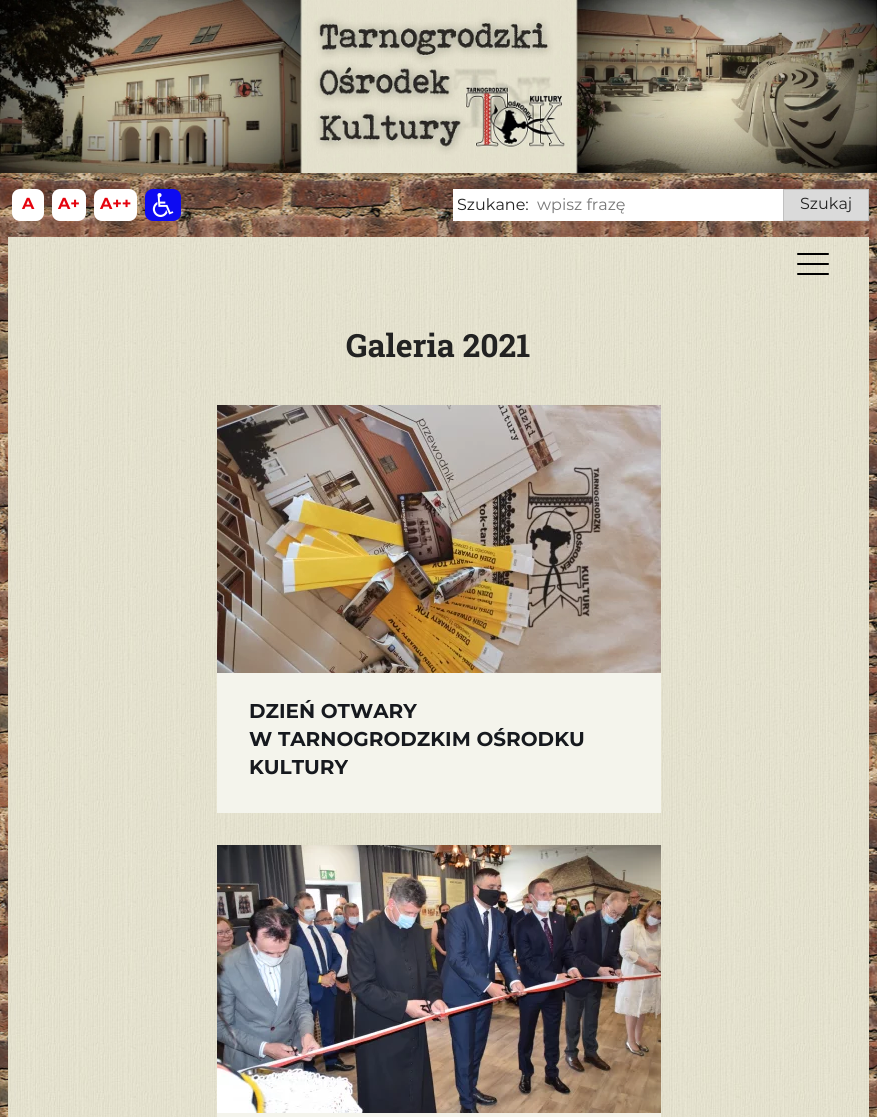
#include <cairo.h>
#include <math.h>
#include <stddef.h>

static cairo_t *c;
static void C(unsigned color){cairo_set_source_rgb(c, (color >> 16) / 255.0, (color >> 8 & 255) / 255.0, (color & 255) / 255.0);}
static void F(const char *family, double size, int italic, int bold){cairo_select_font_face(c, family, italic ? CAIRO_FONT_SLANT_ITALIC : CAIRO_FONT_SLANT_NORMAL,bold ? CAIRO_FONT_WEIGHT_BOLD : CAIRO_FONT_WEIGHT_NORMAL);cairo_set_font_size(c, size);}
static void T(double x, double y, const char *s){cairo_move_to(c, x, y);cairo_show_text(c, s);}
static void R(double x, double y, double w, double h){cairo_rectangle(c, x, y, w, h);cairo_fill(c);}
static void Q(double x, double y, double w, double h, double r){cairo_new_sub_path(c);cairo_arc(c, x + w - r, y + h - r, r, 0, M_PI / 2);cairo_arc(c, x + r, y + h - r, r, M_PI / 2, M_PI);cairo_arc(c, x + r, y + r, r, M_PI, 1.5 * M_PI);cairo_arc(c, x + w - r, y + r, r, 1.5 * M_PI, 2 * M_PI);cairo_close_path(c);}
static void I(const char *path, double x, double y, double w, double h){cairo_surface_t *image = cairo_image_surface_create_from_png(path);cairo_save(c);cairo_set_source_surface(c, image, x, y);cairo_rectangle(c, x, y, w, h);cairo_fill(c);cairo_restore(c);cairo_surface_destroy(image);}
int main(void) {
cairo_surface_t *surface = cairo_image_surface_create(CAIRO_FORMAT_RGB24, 877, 1117);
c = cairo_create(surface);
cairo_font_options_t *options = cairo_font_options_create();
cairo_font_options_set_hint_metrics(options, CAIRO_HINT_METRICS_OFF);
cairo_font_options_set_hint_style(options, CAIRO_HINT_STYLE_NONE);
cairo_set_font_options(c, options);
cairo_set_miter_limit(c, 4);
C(0xffffff);
cairo_paint(c);
I("1.png",0,0,877,173);
I("2.png",0,173,877,944);
C(0xffffff);
Q(12,189,32,32,8);
cairo_fill(c);
F("Montserrat",16,0,1);
C(0xe5030e);
T(22,209,"A");
C(0xffffff);
Q(52,189,34,32,8);
cairo_fill(c);
C(0xe5030e);
T(58,209,"A+");
C(0xffffff);
Q(94,189,43,32,8);
cairo_fill(c);
C(0xe5030e);
T(100,209,"A++");
C(0x0d0bf2);
Q(145,189,36,32,8);
cairo_fill(c);
I("3.png",152,193,22,24);
C(0xffffff);
R(453,189,330,32);
F("Montserrat",16,0,0);
C(0x222222);
T(457,210,"Szukane:");
C(0x767676);
T(537,210,"wpisz frazę");
C(0xdadada);
cairo_rectangle(c,783.5,189.5,85,31);
cairo_fill_preserve(c);
C(0xc0c0c0);
cairo_set_line_width(c,1);
cairo_stroke(c);
C(0x222222);
T(800,209,"Szukaj");
I("4.png",8,237,861,880);
C(0x000000);
Q(797,253,32,2,1);
cairo_fill(c);
Q(797,263,32,2,1);
cairo_fill(c);
Q(797,273,32,2,1);
cairo_fill(c);
F("Roboto Slab",32,0,1);
C(0x222222);
T(346,357,"Galeria 2021");
C(0xf4f4ec);
R(217,673,444,140);
I("5.png",217,405,444,268);
F("Montserrat",20,0,1);
C(0x16191e);
T(249,718,"DZIEŃ OTWARY");
T(249,746,"W TARNOGRODZKIM OŚRODKU");
T(249,774,"KULTURY");
C(0xf4f4ec);
R(217,1113,444,4);
I("6.png",217,845,444,268);
cairo_surface_write_to_png(surface, "o.png");
cairo_font_options_destroy(options);
cairo_destroy(c);
cairo_surface_destroy(surface);
return 0;
}
